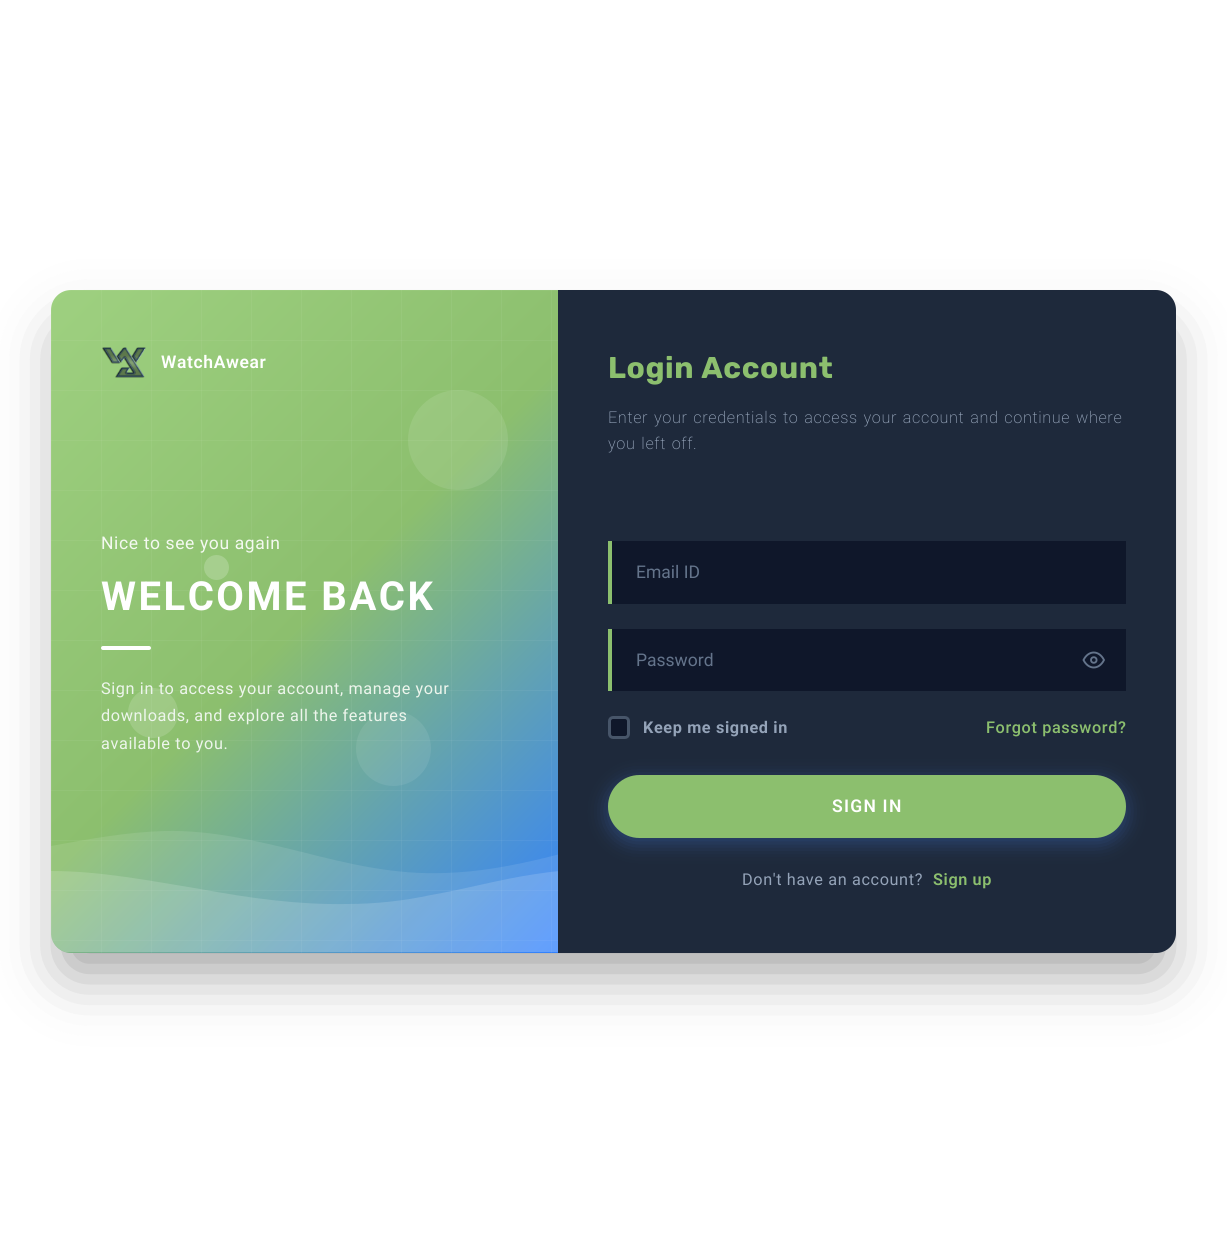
#include <cairo.h>
#include <math.h>
#include <stddef.h>

static cairo_t *c;
static void C(unsigned color){cairo_set_source_rgb(c, (color >> 16) / 255.0, (color >> 8 & 255) / 255.0, (color & 255) / 255.0);}
static void F(const char *family, double size, int italic, int bold){cairo_select_font_face(c, family, italic ? CAIRO_FONT_SLANT_ITALIC : CAIRO_FONT_SLANT_NORMAL,bold ? CAIRO_FONT_WEIGHT_BOLD : CAIRO_FONT_WEIGHT_NORMAL);cairo_set_font_size(c, size);}
static void T(double x, double y, const char *s){cairo_move_to(c, x, y);cairo_show_text(c, s);}
static void L(double x, double y, const char *s, double letter, double word){cairo_move_to(c, x, y);while (*s) {char ch[5] = {0};int n = 0;do ch[n++] = *s++; while ((*s & 0xC0) == 0x80);cairo_show_text(c, ch);cairo_rel_move_to(c, letter + word * (*ch == ' '), 0);}}
static void R(double x, double y, double w, double h){cairo_rectangle(c, x, y, w, h);cairo_fill(c);}
static void Q(double x, double y, double w, double h, double r){cairo_new_sub_path(c);cairo_arc(c, x + w - r, y + h - r, r, 0, M_PI / 2);cairo_arc(c, x + r, y + h - r, r, M_PI / 2, M_PI);cairo_arc(c, x + r, y + r, r, M_PI, 1.5 * M_PI);cairo_arc(c, x + w - r, y + r, r, 1.5 * M_PI, 2 * M_PI);cairo_close_path(c);}
static void S(double x, double y, double w, double h, double r, double blur, double alpha){cairo_push_group_with_content(c, CAIRO_CONTENT_ALPHA);cairo_set_operator(c, CAIRO_OPERATOR_SOURCE);for (int i = 15; i >= -15 && fmin(w, h) + blur * i / 3 > 0; i -= 2) {double e = blur * i / 6;cairo_set_source_rgba(c, 0, 0, 0, alpha * erfc((i - 1) / 8.5) / 2);Q(x - e, y - e, w + 2 * e, h + 2 * e, fmax(0, fmin(r + e + blur * .6, fmin(w, h) / 2 + e)));cairo_fill(c);}cairo_pattern_t *soft = cairo_pop_group(c);cairo_mask(c, soft);cairo_pattern_destroy(soft);}
static void I(const char *path, double x, double y, double w, double h){cairo_surface_t *image = cairo_image_surface_create_from_png(path);cairo_save(c);cairo_set_source_surface(c, image, x, y);cairo_rectangle(c, x, y, w, h);cairo_fill(c);cairo_restore(c);cairo_surface_destroy(image);}
int main(void) {
cairo_surface_t *surface = cairo_image_surface_create(CAIRO_FORMAT_RGB24, 1227, 1242);
c = cairo_create(surface);
cairo_font_options_t *options = cairo_font_options_create();
cairo_font_options_set_hint_metrics(options, CAIRO_HINT_METRICS_OFF);
cairo_font_options_set_hint_style(options, CAIRO_HINT_STYLE_NONE);
cairo_set_font_options(c, options);
cairo_set_miter_limit(c, 4);
cairo_pattern_t *gradient;
C(0xffffff);
cairo_paint(c);
C(0x000000);
S(66,336,1095,633,5,31,.4);
gradient = cairo_pattern_create_linear(12,329,597,913);
cairo_pattern_add_color_stop_rgba(gradient,0,0.62,0.816,0.502,1);
cairo_pattern_add_color_stop_rgba(gradient,.5,0.549,0.749,0.431,1);
cairo_pattern_add_color_stop_rgba(gradient,1,0.196,0.506,1,1);
cairo_set_source(c,gradient);
cairo_pattern_destroy(gradient);
cairo_new_path(c);
cairo_move_to(c,71,290);
cairo_line_to(c,558,290);
cairo_line_to(c,558,953);
cairo_line_to(c,71,953);
cairo_curve_to(c,60,953,51,944,51,933);
cairo_line_to(c,51,310);
cairo_curve_to(c,51,299,60,290,71,290);
cairo_close_path(c);
cairo_fill(c);
cairo_save(c);
cairo_rectangle(c,51,703,507,250);
cairo_clip(c);
cairo_set_source_rgba(c,1,1,1,0.1);
cairo_new_path(c);
cairo_move_to(c,65,952);
cairo_curve_to(c,57,949,51,942,51,933);
cairo_line_to(c,51,846);
cairo_curve_to(c,89,839,127,832,165,831);
cairo_curve_to(c,212,830,257,841,302,852);
cairo_curve_to(c,349,864,395,875,445,873);
cairo_curve_to(c,512,871,576,849,641,832);
cairo_curve_to(c,715,811,789,794,864,778);
cairo_line_to(c,864,952);
cairo_close_path(c);
cairo_fill(c);
cairo_restore(c);
cairo_set_source_rgba(c,1,1,1,0.05);
R(51,305,1,633);
R(101,290,1,663);
R(151,290,1,663);
R(201,290,1,663);
R(251,290,1,663);
R(301,290,1,663);
R(351,290,1,663);
R(401,290,1,663);
R(451,290,1,663);
R(501,290,1,663);
R(551,290,1,663);
R(66,290,492,1);
R(51,340,507,1);
R(51,390,507,1);
R(51,440,507,1);
R(51,490,507,1);
R(51,540,507,1);
R(51,590,507,1);
R(51,640,507,1);
R(51,690,507,1);
R(51,740,507,1);
R(51,790,507,1);
R(51,840,507,1);
R(51,890,507,1);
R(51,940,507,1);
I("1.png",102,347,44,31);
F("Roboto SemiBold",17.5,0,0);
C(0xffffff);
L(161,368,"WatchAwear",.62,0);
cairo_set_source_rgba(c,1,1,1,0.1);
cairo_new_path(c);
cairo_arc(c,458,440,50,0,2 * M_PI);
cairo_fill(c);
C(0xa6cf8e);
cairo_arc(c,216.5,567.5,12.5,0,2 * M_PI);
cairo_fill(c);
cairo_set_source_rgba(c,1,1,1,0.15);
cairo_arc(c,153,713,25,0,2 * M_PI);
cairo_fill(c);
cairo_set_source_rgba(c,1,1,1,0.08);
cairo_arc(c,393.5,748.5,37.5,0,2 * M_PI);
cairo_fill(c);
F("Roboto",17.5,0,0);
C(0xf4f9f1);
L(101,549,"Nice to see you again",.62,0);
F("Roboto",40,0,1);
C(0xffffff);
L(101,610,"WELCOME BACK",2.5,0);
Q(101,646,50,4,2);
cairo_fill(c);
F("Roboto",16.25,0,0);
C(0xedf5ec);
L(101,694,"Sign in to access your account, manage your",.62,0);
L(101,721,"downloads, and explore all the features",.62,0);
L(101,749,"available to you.",.62,0);
cairo_save(c);
cairo_rectangle(c,51,765,507,188);
cairo_clip(c);
cairo_set_source_rgba(c,1,1,1,0.15);
cairo_new_path(c);
cairo_move_to(c,65,952);
cairo_curve_to(c,57,949,51,942,51,933);
cairo_line_to(c,51,871);
cairo_curve_to(c,101,871,151,881,200,889);
cairo_curve_to(c,249,898,298,905,347,904);
cairo_curve_to(c,375,904,403,901,431,895);
cairo_curve_to(c,466,889,501,879,536,874);
cairo_curve_to(c,599,864,662,870,725,877);
cairo_line_to(c,725,952);
cairo_close_path(c);
cairo_fill(c);
cairo_restore(c);
C(0x1e293b);
cairo_new_path(c);
cairo_move_to(c,558,290);
cairo_line_to(c,1156,290);
cairo_curve_to(c,1167,290,1176,299,1176,310);
cairo_line_to(c,1176,933);
cairo_curve_to(c,1176,944,1167,953,1156,953);
cairo_line_to(c,558,953);
cairo_close_path(c);
cairo_fill(c);
F("Rubik",30,0,1);
C(0x8cbf6e);
L(608,378,"Login Account",.62,0);
F("Roboto ExtraLight",16.25,0,0);
C(0x94a3b8);
L(608,423,"Enter your credentials to access your account and continue where",.62,1.25);
L(608,449,"you left off.",.62,1.25);
C(0x0f172a);
R(612,541,514,63);
C(0x8cbf6e);
R(608,541,4,63);
F("Roboto",17.5,0,0);
C(0x64748b);
T(636,578,"Email ID");
C(0x0f172a);
R(612,629,514,62);
C(0x8cbf6e);
R(608,629,4,62);
C(0x64748b);
T(636,666,"Password");
cairo_new_path(c);
cairo_move_to(c,1083.5,660);
cairo_curve_to(c,1088.5,650,1099,650,1104,660);
cairo_curve_to(c,1099,670,1088.5,670,1083.5,660);
cairo_close_path(c);
cairo_set_line_width(c,1.9);
cairo_stroke(c);
cairo_arc(c,1093.8,660,2.8,0,2 * M_PI);
cairo_stroke(c);
C(0x0f172a);
Q(609.5,717.5,19,20,3.5);
cairo_fill_preserve(c);
C(0x475569);
cairo_set_line_width(c,3);
cairo_stroke(c);
F("Roboto",16.25,0,1);
C(0x94a3b8);
L(643,733,"Keep me signed in",.62,0);
F("Roboto Medium",16.25,0,0);
C(0x8cbf6e);
L(986,733,"Forgot password?",.62,0);
C(0x4a8eff);
S(608,780,518,63,31.5,9.5,.3);
C(0x8cbf6e);
Q(608,775,518,63,31.5);
cairo_fill(c);
F("Roboto SemiBold",17.5,0,0);
C(0xffffff);
L(832,812,"SIGN IN",1.25,0);
F("Roboto",16.25,0,0);
C(0x94a3b8);
L(742,885,"Don't have an account?",.62,0);
F("Roboto SemiBold",16.25,0,0);
C(0x8cbf6e);
L(933,885,"Sign up",.62,0);
cairo_surface_write_to_png(surface, "o.png");
cairo_font_options_destroy(options);
cairo_destroy(c);
cairo_surface_destroy(surface);
return 0;
}
